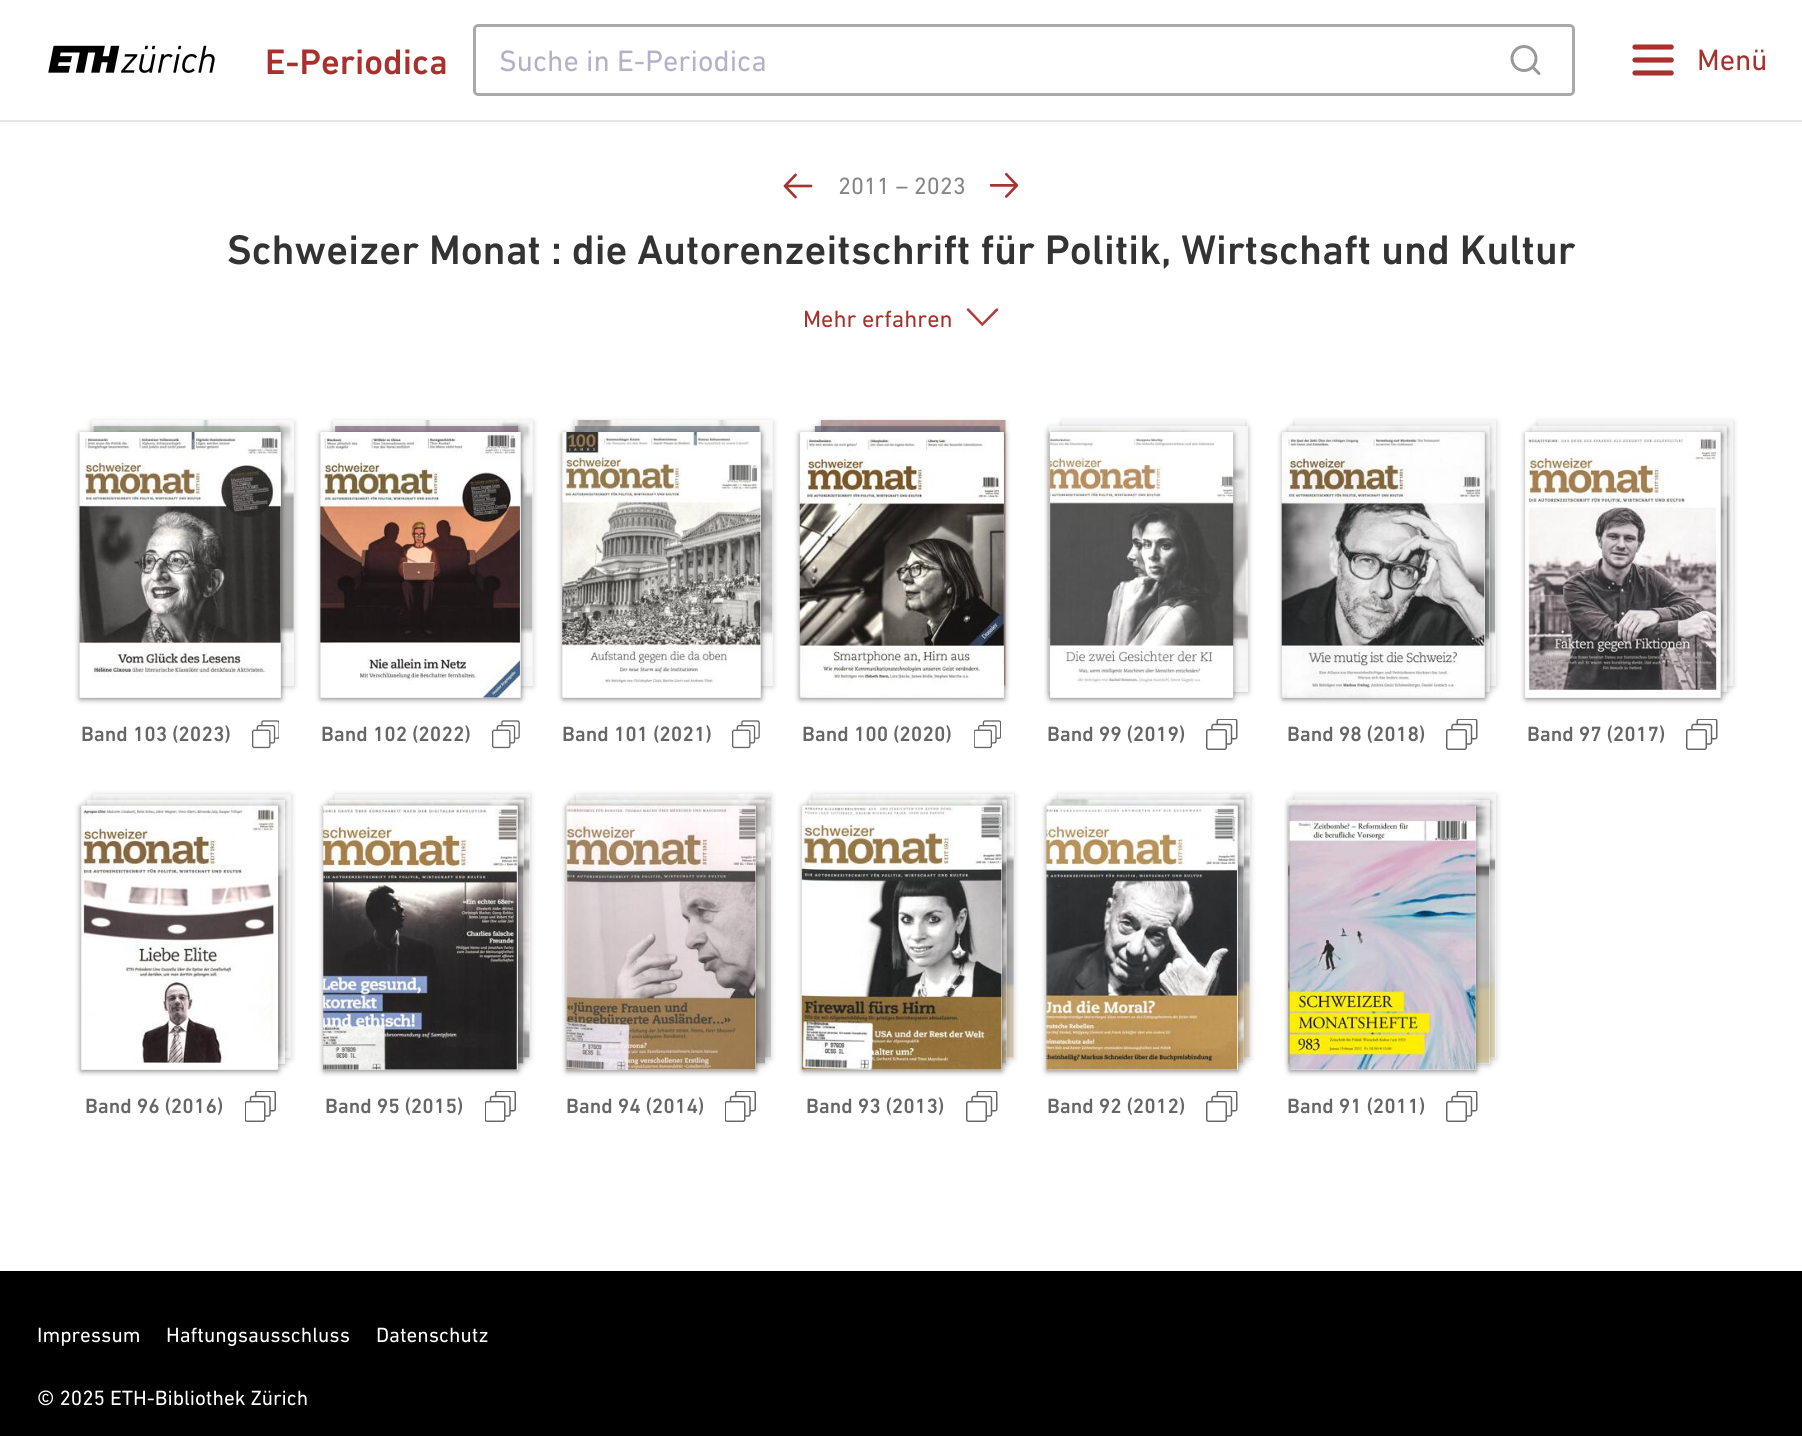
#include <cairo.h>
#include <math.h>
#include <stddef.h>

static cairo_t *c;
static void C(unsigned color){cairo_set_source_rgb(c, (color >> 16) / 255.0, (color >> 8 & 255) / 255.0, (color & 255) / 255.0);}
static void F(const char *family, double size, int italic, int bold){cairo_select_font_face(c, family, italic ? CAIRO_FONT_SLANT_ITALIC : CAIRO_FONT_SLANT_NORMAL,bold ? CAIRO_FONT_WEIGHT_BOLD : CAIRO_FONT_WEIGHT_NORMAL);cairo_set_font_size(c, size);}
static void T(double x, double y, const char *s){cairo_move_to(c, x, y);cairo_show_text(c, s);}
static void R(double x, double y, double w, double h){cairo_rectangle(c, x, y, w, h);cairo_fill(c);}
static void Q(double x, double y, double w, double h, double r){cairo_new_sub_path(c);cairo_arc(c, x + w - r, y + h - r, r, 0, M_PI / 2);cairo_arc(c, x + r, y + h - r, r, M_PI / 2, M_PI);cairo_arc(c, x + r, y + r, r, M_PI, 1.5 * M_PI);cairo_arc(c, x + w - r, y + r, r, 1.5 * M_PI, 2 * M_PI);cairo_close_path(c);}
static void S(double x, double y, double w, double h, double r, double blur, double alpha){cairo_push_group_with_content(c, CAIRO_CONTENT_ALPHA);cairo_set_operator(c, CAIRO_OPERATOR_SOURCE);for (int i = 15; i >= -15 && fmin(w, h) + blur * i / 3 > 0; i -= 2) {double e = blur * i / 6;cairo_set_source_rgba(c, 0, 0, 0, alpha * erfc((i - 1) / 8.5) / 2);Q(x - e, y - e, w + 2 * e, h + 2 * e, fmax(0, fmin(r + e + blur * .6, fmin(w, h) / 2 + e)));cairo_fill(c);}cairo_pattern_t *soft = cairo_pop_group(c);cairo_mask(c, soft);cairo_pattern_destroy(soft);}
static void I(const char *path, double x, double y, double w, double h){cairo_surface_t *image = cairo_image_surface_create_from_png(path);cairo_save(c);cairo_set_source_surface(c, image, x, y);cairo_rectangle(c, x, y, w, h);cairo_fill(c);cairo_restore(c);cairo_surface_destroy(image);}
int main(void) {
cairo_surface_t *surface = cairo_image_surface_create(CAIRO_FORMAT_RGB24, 1802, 1436);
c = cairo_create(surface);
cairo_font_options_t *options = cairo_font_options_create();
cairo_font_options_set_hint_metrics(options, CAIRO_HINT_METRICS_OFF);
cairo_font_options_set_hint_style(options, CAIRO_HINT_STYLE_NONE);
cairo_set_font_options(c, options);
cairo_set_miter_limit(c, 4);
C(0xffffff);
cairo_paint(c);
C(0xe6e6e6);
R(0,120,1802,2);
I("1.png",48,45,167,28);
F("DIN Next Medium",36,0,0);
C(0xa8312e);
T(265,74,"E-Periodica");
Q(474.5,25.5,1099,69,3.5);
C(0xaaaaaa);
cairo_set_line_width(c,3);
cairo_stroke(c);
F("DIN Next",30,0,0);
C(0xb3b2c8);
T(499,71,"Suche in E-Periodica");
I("2.png",1510,45,31,30);
I("3.png",1632,44,42,32);
C(0xa8312e);
T(1697,70,"Menü");
I("4.png",783,173,30,26);
F("DIN Next",24,0,0);
C(0x858585);
T(838,194,"2011 – 2023");
I("5.png",990,172,29,26);
F("DIN Next Medium",42,0,0);
C(0x333333);
T(227,264,"Schweizer Monat : die Autorenzeitschrift für Politik, Wirtschaft und Kultur");
F("DIN Next",24,0,0);
C(0xa8312e);
T(803,327,"Mehr erfahren");
I("6.png",966,308,33,19);
C(0x999999);
S(92,422,202,265,0,3,.5);
C(0xf5f5f5);
R(92,420,202,266);
I("7.png",91,420,203,243);
cairo_save(c);
cairo_set_fill_rule(c,CAIRO_FILL_RULE_EVEN_ODD);
cairo_new_path(c);
cairo_move_to(c,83,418);
cairo_line_to(c,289,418);
cairo_line_to(c,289,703);
cairo_line_to(c,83,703);
cairo_close_path(c);
cairo_move_to(c,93,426);
cairo_line_to(c,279,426);
cairo_line_to(c,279,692);
cairo_line_to(c,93,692);
cairo_close_path(c);
cairo_clip(c);
C(0x000000);
S(93,428,186,265,0,3,.25);
cairo_restore(c);
cairo_set_source_rgba(c,0.902,0.902,0.902,0.5);
R(93,426,186,6);
I("8.png",93,426,187,6);
C(0x000000);
S(80,434,201,265,0,3,.5);
C(0xe6e6e6);
R(80,432,201,266);
I("9.png",79,432,202,266);
F("DIN Next Medium",21,0,0);
C(0x666666);
T(81,741,"Band 103 (2023)");
I("10.png",252,720,27,29);
C(0x999999);
S(333,422,200,265,0,3,.5);
C(0xf5f5f5);
R(333,420,200,266);
I("11.png",332,420,201,247);
cairo_save(c);
cairo_set_fill_rule(c,CAIRO_FILL_RULE_EVEN_ODD);
cairo_new_path(c);
cairo_move_to(c,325,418);
cairo_line_to(c,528,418);
cairo_line_to(c,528,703);
cairo_line_to(c,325,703);
cairo_close_path(c);
cairo_move_to(c,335,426);
cairo_line_to(c,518,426);
cairo_line_to(c,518,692);
cairo_line_to(c,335,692);
cairo_close_path(c);
cairo_clip(c);
C(0x000000);
S(335,428,183,265,0,3,.25);
cairo_restore(c);
cairo_set_source_rgba(c,0.902,0.902,0.902,0.5);
R(335,426,183,6);
I("12.png",335,426,184,6);
C(0x000000);
S(321,434,200,265,0,3,.5);
C(0xe6e6e6);
R(321,432,200,266);
I("13.png",320,432,200,266);
C(0x666666);
T(321,741,"Band 102 (2022)");
I("14.png",492,720,28,29);
C(0x999999);
S(575,422,198,265,0,3,.5);
C(0xf5f5f5);
R(575,420,198,266);
I("15.png",574,420,199,252);
cairo_save(c);
cairo_set_fill_rule(c,CAIRO_FILL_RULE_EVEN_ODD);
cairo_new_path(c);
cairo_move_to(c,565,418);
cairo_line_to(c,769,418);
cairo_line_to(c,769,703);
cairo_line_to(c,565,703);
cairo_close_path(c);
cairo_move_to(c,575,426);
cairo_line_to(c,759,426);
cairo_line_to(c,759,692);
cairo_line_to(c,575,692);
cairo_close_path(c);
cairo_clip(c);
C(0x000000);
S(575,428,184,265,0,3,.25);
cairo_restore(c);
cairo_set_source_rgba(c,0.902,0.902,0.902,0.5);
R(575,426,184,6);
I("16.png",574,426,186,6);
C(0x000000);
S(563,434,198,265,0,3,.5);
C(0xe6e6e6);
R(563,432,198,266);
I("17.png",562,432,199,266);
C(0x666666);
T(562,741,"Band 101 (2021)");
I("14.png",732,720,28,29);
C(0x999999);
S(821,422,184,265,0,3,.5);
C(0xf5f5f5);
R(821,420,184,266);
I("18.png",820,420,186,266);
cairo_save(c);
cairo_set_fill_rule(c,CAIRO_FILL_RULE_EVEN_ODD);
cairo_new_path(c);
cairo_move_to(c,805,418);
cairo_line_to(c,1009,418);
cairo_line_to(c,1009,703);
cairo_line_to(c,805,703);
cairo_close_path(c);
cairo_move_to(c,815,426);
cairo_line_to(c,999,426);
cairo_line_to(c,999,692);
cairo_line_to(c,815,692);
cairo_close_path(c);
cairo_clip(c);
C(0x000000);
S(815,428,184,265,0,3,.25);
cairo_restore(c);
cairo_set_source_rgba(c,0.902,0.902,0.902,0.5);
R(815,426,184,6);
I("19.png",814,426,186,6);
C(0x000000);
S(800,434,204,265,0,3,.5);
C(0xe6e6e6);
R(800,432,204,266);
I("20.png",799,432,205,266);
C(0x666666);
T(802,741,"Band 100 (2020)");
I("21.png",974,720,27,29);
C(0x999999);
S(1062,422,183,265,0,3,.5);
C(0xf5f5f5);
R(1062,420,183,266);
I("22.png",1062,426,184,249);
cairo_save(c);
cairo_set_fill_rule(c,CAIRO_FILL_RULE_EVEN_ODD);
cairo_new_path(c);
cairo_move_to(c,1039,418);
cairo_line_to(c,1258,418);
cairo_line_to(c,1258,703);
cairo_line_to(c,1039,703);
cairo_close_path(c);
cairo_move_to(c,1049,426);
cairo_line_to(c,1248,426);
cairo_line_to(c,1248,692);
cairo_line_to(c,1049,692);
cairo_close_path(c);
cairo_clip(c);
C(0x000000);
S(1049,428,199,265,0,3,.25);
cairo_restore(c);
cairo_set_source_rgba(c,0.902,0.902,0.902,0.5);
R(1049,426,199,266);
I("23.png",1048,426,200,266);
C(0x000000);
S(1050,434,183,265,0,3,.5);
C(0xe6e6e6);
R(1050,432,183,266);
I("24.png",1050,432,184,266);
C(0x666666);
T(1047,741,"Band 99 (2019)");
I("25.png",1206,719,32,31);
C(0x999999);
S(1295,422,201,265,0,3,.5);
C(0xf5f5f5);
R(1295,420,201,266);
I("26.png",1294,425,202,248);
cairo_save(c);
cairo_set_fill_rule(c,CAIRO_FILL_RULE_EVEN_ODD);
cairo_new_path(c);
cairo_move_to(c,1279,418);
cairo_line_to(c,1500,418);
cairo_line_to(c,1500,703);
cairo_line_to(c,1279,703);
cairo_close_path(c);
cairo_move_to(c,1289,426);
cairo_line_to(c,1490,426);
cairo_line_to(c,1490,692);
cairo_line_to(c,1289,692);
cairo_close_path(c);
cairo_clip(c);
C(0x000000);
S(1289,428,201,265,0,3,.25);
cairo_restore(c);
cairo_set_source_rgba(c,0.902,0.902,0.902,0.5);
R(1289,426,201,266);
I("27.png",1288,426,202,266);
C(0x000000);
S(1283,434,202,265,0,3,.5);
C(0xe6e6e6);
R(1283,432,202,266);
I("28.png",1281,432,204,266);
C(0x666666);
T(1287,741,"Band 98 (2018)");
I("25.png",1446,719,32,31);
C(0x999999);
S(1538,422,195,265,0,3,.5);
C(0xf5f5f5);
R(1538,420,195,266);
I("29.png",1538,426,193,255);
cairo_save(c);
cairo_set_fill_rule(c,CAIRO_FILL_RULE_EVEN_ODD);
cairo_new_path(c);
cairo_move_to(c,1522,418);
cairo_line_to(c,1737,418);
cairo_line_to(c,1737,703);
cairo_line_to(c,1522,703);
cairo_close_path(c);
cairo_move_to(c,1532,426);
cairo_line_to(c,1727,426);
cairo_line_to(c,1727,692);
cairo_line_to(c,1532,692);
cairo_close_path(c);
cairo_clip(c);
C(0x000000);
S(1532,428,195,265,0,3,.25);
cairo_restore(c);
cairo_set_source_rgba(c,0.902,0.902,0.902,0.5);
R(1532,426,195,266);
I("30.png",1531,426,196,266);
C(0x000000);
S(1526,434,195,265,0,3,.5);
C(0xe6e6e6);
R(1526,432,195,266);
I("31.png",1525,432,195,266);
C(0x666666);
T(1527,741,"Band 97 (2017)");
I("25.png",1686,719,32,31);
C(0x999999);
S(93,795,198,264,0,3,.5);
C(0xf5f5f5);
R(93,794,198,264);
I("32.png",92,797,197,258);
cairo_save(c);
cairo_set_fill_rule(c,CAIRO_FILL_RULE_EVEN_ODD);
cairo_new_path(c);
cairo_move_to(c,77,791);
cairo_line_to(c,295,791);
cairo_line_to(c,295,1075);
cairo_line_to(c,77,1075);
cairo_close_path(c);
cairo_move_to(c,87,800);
cairo_line_to(c,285,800);
cairo_line_to(c,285,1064);
cairo_line_to(c,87,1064);
cairo_close_path(c);
cairo_clip(c);
C(0x000000);
S(87,801,198,264,0,3,.25);
cairo_restore(c);
cairo_set_source_rgba(c,0.902,0.902,0.902,0.5);
R(87,800,198,264);
I("33.png",86,799,199,265);
C(0x000000);
S(81,807,197,264,0,3,.5);
C(0xe6e6e6);
R(81,806,197,264);
I("34.png",81,805,198,265);
C(0x666666);
T(85,1113,"Band 96 (2016)");
I("35.png",245,1091,31,31);
C(0x999999);
S(335,795,195,264,0,3,.5);
C(0xf5f5f5);
R(335,794,195,264);
I("36.png",334,796,196,262);
cairo_save(c);
cairo_set_fill_rule(c,CAIRO_FILL_RULE_EVEN_ODD);
cairo_new_path(c);
cairo_move_to(c,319,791);
cairo_line_to(c,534,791);
cairo_line_to(c,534,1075);
cairo_line_to(c,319,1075);
cairo_close_path(c);
cairo_move_to(c,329,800);
cairo_line_to(c,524,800);
cairo_line_to(c,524,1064);
cairo_line_to(c,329,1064);
cairo_close_path(c);
cairo_clip(c);
C(0x000000);
S(329,801,195,264,0,3,.25);
cairo_restore(c);
cairo_set_source_rgba(c,0.902,0.902,0.902,0.5);
R(329,800,195,264);
I("37.png",328,799,196,265);
C(0x000000);
S(324,807,194,264,0,3,.5);
C(0xe6e6e6);
R(324,806,194,264);
I("38.png",323,805,194,265);
C(0x666666);
T(325,1113,"Band 95 (2015)");
I("35.png",485,1091,31,31);
C(0x999999);
S(576,795,195,264,0,3,.5);
C(0xf5f5f5);
R(576,794,195,264);
I("39.png",576,793,195,265);
cairo_save(c);
cairo_set_fill_rule(c,CAIRO_FILL_RULE_EVEN_ODD);
cairo_new_path(c);
cairo_move_to(c,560,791);
cairo_line_to(c,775,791);
cairo_line_to(c,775,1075);
cairo_line_to(c,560,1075);
cairo_close_path(c);
cairo_move_to(c,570,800);
cairo_line_to(c,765,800);
cairo_line_to(c,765,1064);
cairo_line_to(c,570,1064);
cairo_close_path(c);
cairo_clip(c);
C(0x000000);
S(570,801,195,264,0,3,.25);
cairo_restore(c);
cairo_set_source_rgba(c,0.902,0.902,0.902,0.5);
R(570,800,195,264);
I("40.png",570,799,195,265);
C(0x000000);
S(567,807,189,264,0,3,.5);
C(0xe6e6e6);
R(567,806,189,264);
I("41.png",566,805,190,265);
C(0x666666);
T(566,1113,"Band 94 (2014)");
I("35.png",725,1091,31,31);
C(0x999999);
S(813,795,201,264,0,3,.5);
C(0xf5f5f5);
R(813,794,201,264);
I("42.png",812,794,202,264);
cairo_save(c);
cairo_set_fill_rule(c,CAIRO_FILL_RULE_EVEN_ODD);
cairo_new_path(c);
cairo_move_to(c,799,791);
cairo_line_to(c,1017,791);
cairo_line_to(c,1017,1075);
cairo_line_to(c,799,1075);
cairo_close_path(c);
cairo_move_to(c,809,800);
cairo_line_to(c,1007,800);
cairo_line_to(c,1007,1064);
cairo_line_to(c,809,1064);
cairo_close_path(c);
cairo_clip(c);
C(0x000000);
S(809,801,198,264,0,3,.25);
cairo_restore(c);
cairo_set_source_rgba(c,0.902,0.902,0.902,0.5);
R(809,800,198,264);
I("43.png",808,799,199,265);
C(0x000000);
S(803,807,199,264,0,3,.5);
C(0xe6e6e6);
R(803,806,199,264);
I("44.png",801,805,201,265);
C(0x666666);
T(806,1113,"Band 93 (2013)");
I("25.png",966,1091,32,31);
C(0x999999);
S(1058,795,192,264,0,3,.5);
C(0xf5f5f5);
R(1058,794,192,264);
I("45.png",1057,793,193,265);
cairo_save(c);
cairo_set_fill_rule(c,CAIRO_FILL_RULE_EVEN_ODD);
cairo_new_path(c);
cairo_move_to(c,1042,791);
cairo_line_to(c,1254,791);
cairo_line_to(c,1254,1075);
cairo_line_to(c,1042,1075);
cairo_close_path(c);
cairo_move_to(c,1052,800);
cairo_line_to(c,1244,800);
cairo_line_to(c,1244,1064);
cairo_line_to(c,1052,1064);
cairo_close_path(c);
cairo_clip(c);
C(0x000000);
S(1052,801,192,264,0,3,.25);
cairo_restore(c);
cairo_set_source_rgba(c,0.902,0.902,0.902,0.5);
R(1052,800,192,264);
I("46.png",1051,799,193,265);
C(0x000000);
S(1047,807,191,264,0,3,.5);
C(0xe6e6e6);
R(1047,806,191,264);
I("47.png",1046,805,191,265);
C(0x666666);
T(1047,1113,"Band 92 (2012)");
I("25.png",1206,1091,32,31);
C(0x999999);
S(1295,795,201,264,0,3,.5);
C(0xf5f5f5);
R(1295,794,201,264);
I("48.png",1294,798,202,260);
cairo_save(c);
cairo_set_fill_rule(c,CAIRO_FILL_RULE_EVEN_ODD);
cairo_new_path(c);
cairo_move_to(c,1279,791);
cairo_line_to(c,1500,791);
cairo_line_to(c,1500,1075);
cairo_line_to(c,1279,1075);
cairo_close_path(c);
cairo_move_to(c,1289,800);
cairo_line_to(c,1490,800);
cairo_line_to(c,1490,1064);
cairo_line_to(c,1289,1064);
cairo_close_path(c);
cairo_clip(c);
C(0x000000);
S(1289,801,201,264,0,3,.25);
cairo_restore(c);
cairo_set_source_rgba(c,0.902,0.902,0.902,0.5);
R(1289,800,201,264);
I("49.png",1288,799,202,265);
C(0x000000);
S(1290,807,186,264,0,3,.5);
C(0xe6e6e6);
R(1290,806,186,264);
I("50.png",1289,805,187,265);
C(0x666666);
T(1287,1113,"Band 91 (2011)");
I("25.png",1446,1091,32,31);
C(0x000000);
R(0,1271,1802,165);
F("DIN Next",21,0,0);
C(0xffffff);
T(37,1342,"Impressum");
T(166,1342,"Haftungsausschluss");
T(376,1342,"Datenschutz");
T(37,1405,"© 2025 ETH-Bibliothek Zürich");
cairo_surface_write_to_png(surface, "o.png");
cairo_font_options_destroy(options);
cairo_destroy(c);
cairo_surface_destroy(surface);
return 0;
}
